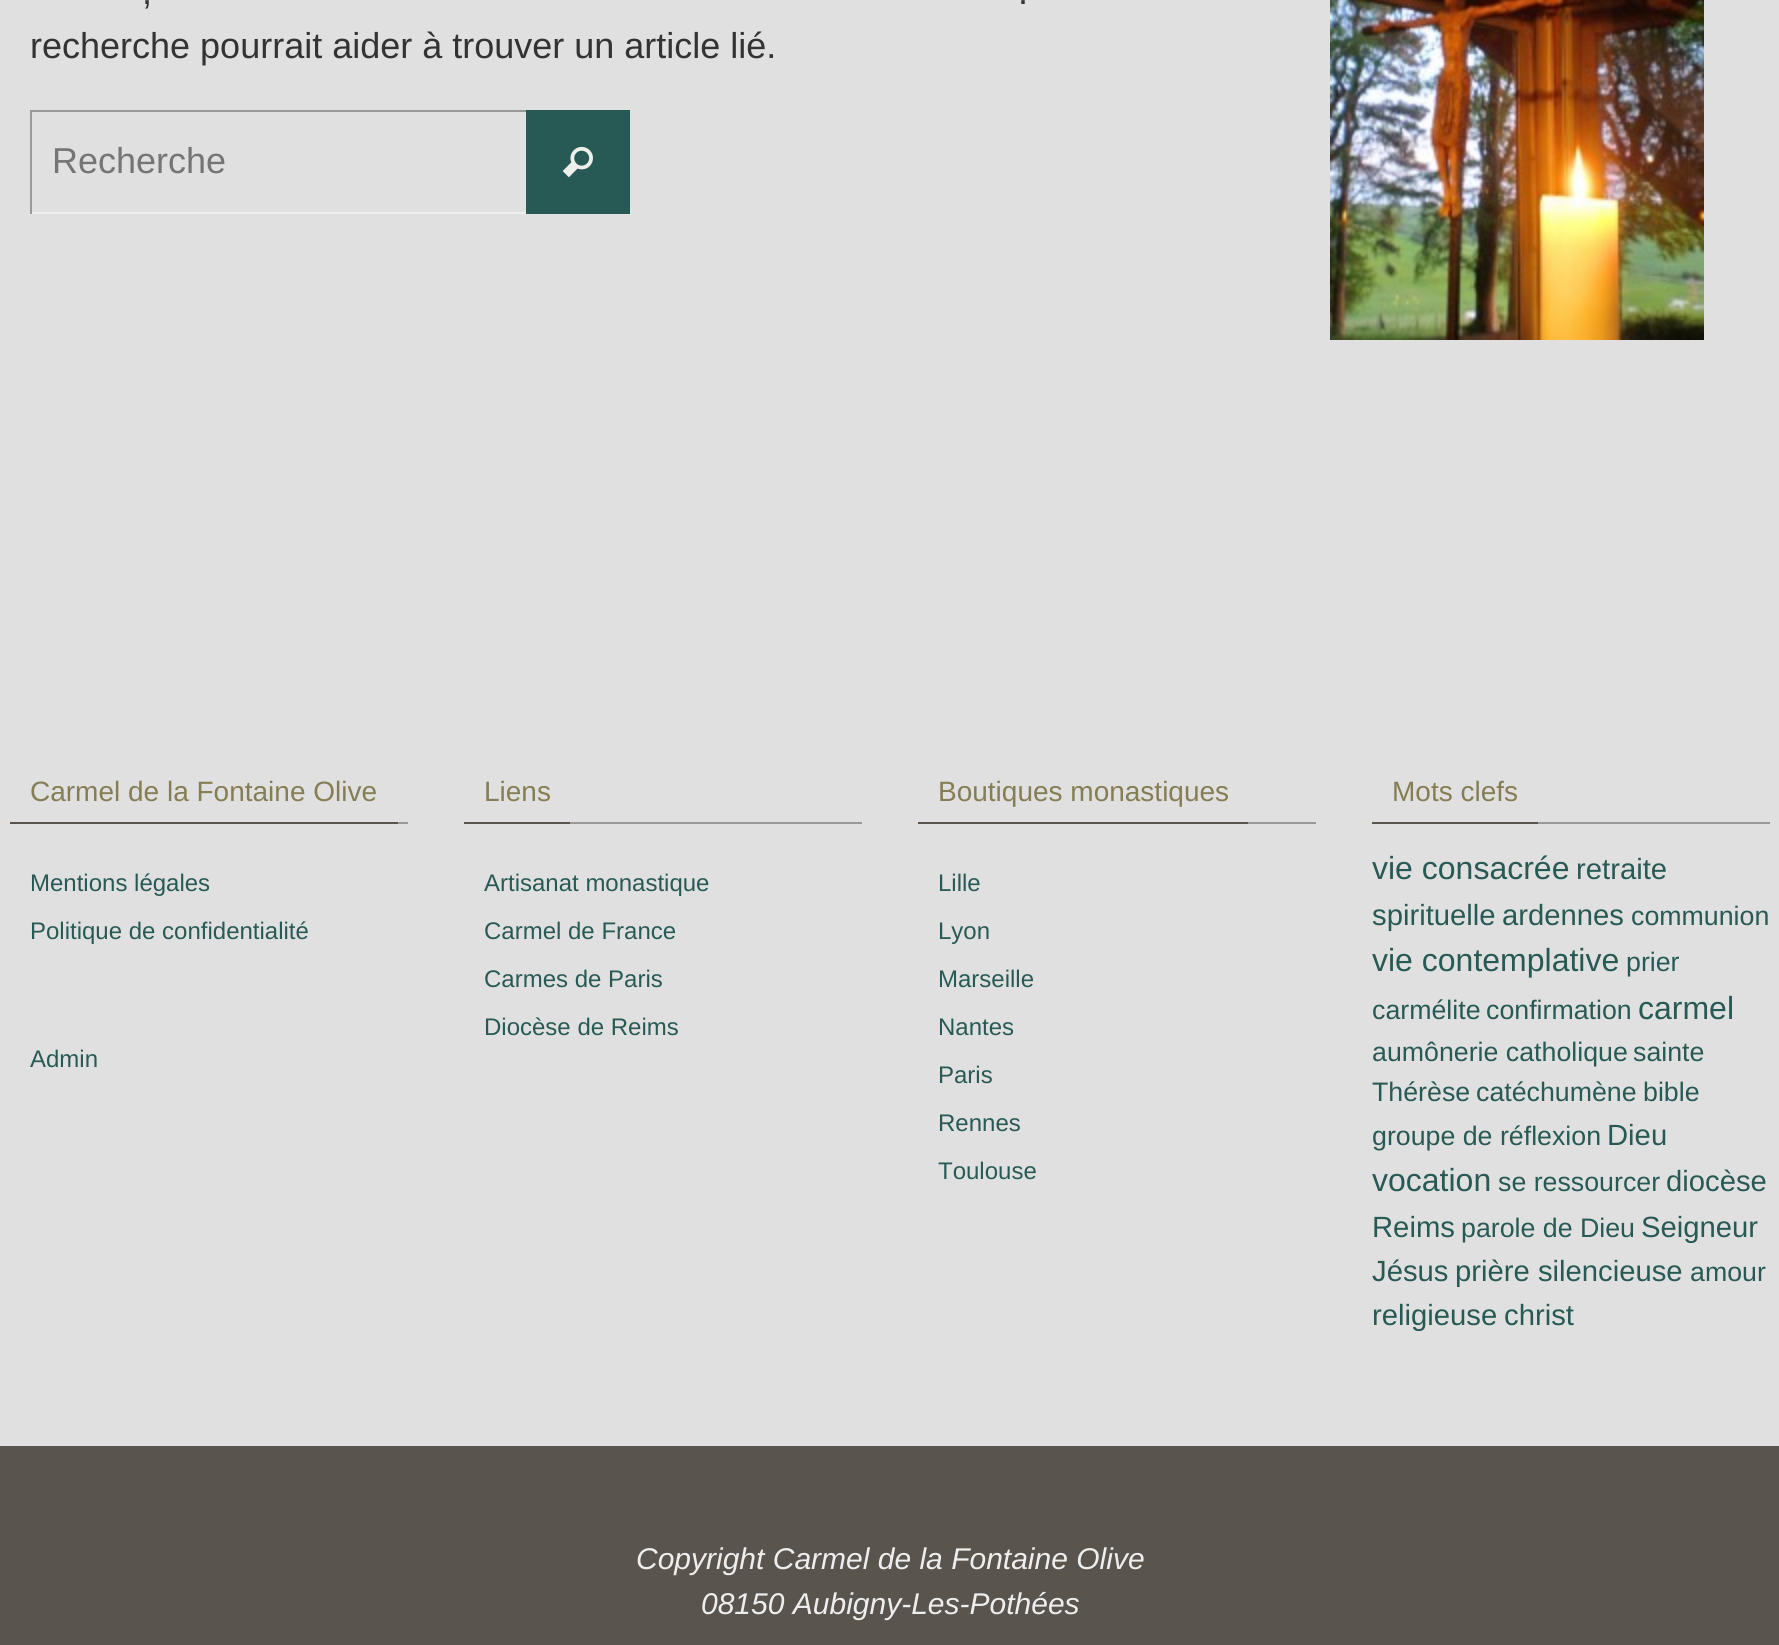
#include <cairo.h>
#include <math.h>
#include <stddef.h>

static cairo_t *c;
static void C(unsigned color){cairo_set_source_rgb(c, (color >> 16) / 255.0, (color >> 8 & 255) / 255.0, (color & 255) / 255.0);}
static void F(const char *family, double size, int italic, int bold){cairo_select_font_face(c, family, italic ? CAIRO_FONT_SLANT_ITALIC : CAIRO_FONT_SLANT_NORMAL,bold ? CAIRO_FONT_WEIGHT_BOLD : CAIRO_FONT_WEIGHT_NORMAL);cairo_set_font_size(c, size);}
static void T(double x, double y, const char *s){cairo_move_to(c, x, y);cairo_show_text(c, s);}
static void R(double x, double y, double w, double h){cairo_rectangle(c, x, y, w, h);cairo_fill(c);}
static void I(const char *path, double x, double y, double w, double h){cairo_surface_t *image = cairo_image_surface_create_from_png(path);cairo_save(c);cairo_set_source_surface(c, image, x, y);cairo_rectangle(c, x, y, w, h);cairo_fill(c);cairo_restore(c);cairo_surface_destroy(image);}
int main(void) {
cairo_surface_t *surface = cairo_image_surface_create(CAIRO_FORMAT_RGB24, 1779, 1645);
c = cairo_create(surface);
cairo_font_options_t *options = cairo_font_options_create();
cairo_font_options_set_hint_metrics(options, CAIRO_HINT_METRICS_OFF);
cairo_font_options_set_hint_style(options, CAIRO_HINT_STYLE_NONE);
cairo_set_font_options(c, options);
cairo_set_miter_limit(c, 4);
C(0xe1e0e0);
cairo_paint(c);
F("Liberation Sans",36,0,0);
C(0x333333);
T(142,4,",");
T(1018,4,".");
T(30,58,"recherche pourrait aider à trouver un article lié.");
C(0x999999);
R(30,110,496,2);
C(0xeeeeee);
R(30,212,496,2);
C(0x999999);
R(30,110,2,104);
C(0x757575);
T(52,173,"Recherche");
C(0x275a55);
R(526,110,104,104);
I("1.png",562,146,31,32);
I("2.png",1330,0,374,340);
C(0x999999);
R(398,822,10,2);
C(0x59554e);
R(10,822,388,2);
F("Liberation Sans",28,0,0);
C(0x857d53);
T(30,801,"Carmel de la Fontaine Olive");
F("Liberation Sans",24,0,0);
C(0x275a55);
T(30,891,"Mentions légales");
T(30,939,"Politique de confidentialité");
T(30,1067,"Admin");
C(0x999999);
R(570,822,292,2);
C(0x59554e);
R(464,822,106,2);
F("Liberation Sans",28,0,0);
C(0x857d53);
T(484,801,"Liens");
F("Liberation Sans",24,0,0);
C(0x275a55);
T(484,891,"Artisanat monastique");
T(484,939,"Carmel de France");
T(484,987,"Carmes de Paris");
T(484,1035,"Diocèse de Reims");
C(0x999999);
R(1248,822,68,2);
C(0x59554e);
R(918,822,330,2);
F("Liberation Sans",28,0,0);
C(0x857d53);
T(938,801,"Boutiques monastiques");
F("Liberation Sans",24,0,0);
C(0x275a55);
T(938,891,"Lille");
T(938,939,"Lyon");
T(938,987,"Marseille");
T(938,1035,"Nantes");
T(938,1083,"Paris");
T(938,1131,"Rennes");
T(938,1179,"Toulouse");
C(0x999999);
R(1538,822,232,2);
C(0x59554e);
R(1372,822,166,2);
F("Liberation Sans",28,0,0);
C(0x857d53);
T(1392,801,"Mots clefs");
F("Liberation Sans",32,0,0);
C(0x275a55);
T(1372,879,"vie consacrée");
F("Liberation Sans",29.25,0,0);
T(1576,879,"retraite");
T(1372,925,"spirituelle");
T(1502,925,"ardennes");
F("Liberation Sans",26.75,0,0);
T(1631,925,"communion");
F("Liberation Sans",32,0,0);
T(1372,971,"vie contemplative");
F("Liberation Sans",26.75,0,0);
T(1626,971,"prier");
T(1372,1019,"carmélite");
T(1486,1019,"confirmation");
F("Liberation Sans",32,0,0);
T(1638,1019,"carmel");
F("Liberation Sans",26.75,0,0);
T(1372,1061,"aumônerie catholique");
T(1633,1061,"sainte");
T(1372,1101,"Thérèse");
T(1476,1101,"catéchumène");
T(1643,1101,"bible");
T(1372,1145,"groupe de réflexion");
F("Liberation Sans",29.25,0,0);
T(1607,1145,"Dieu");
F("Liberation Sans",32,0,0);
T(1372,1191,"vocation");
F("Liberation Sans",26.75,0,0);
T(1498,1191,"se ressourcer");
F("Liberation Sans",29.25,0,0);
T(1666,1191,"diocèse");
T(1372,1237,"Reims");
F("Liberation Sans",26.75,0,0);
T(1461,1237,"parole de Dieu");
F("Liberation Sans",29.25,0,0);
T(1641,1237,"Seigneur");
T(1372,1281,"Jésus");
T(1455,1281,"prière silencieuse");
F("Liberation Sans",26.75,0,0);
T(1690,1281,"amour");
F("Liberation Sans",29.25,0,0);
T(1372,1325,"religieuse");
T(1504,1325,"christ");
C(0x59554e);
R(0,1446,1779,199);
F("Liberation Sans",30,1,0);
C(0xeeeeee);
T(636,1569,"Copyright Carmel de la Fontaine Olive");
T(701,1614,"08150 Aubigny-Les-Pothées");
cairo_surface_write_to_png(surface, "o.png");
cairo_font_options_destroy(options);
cairo_destroy(c);
cairo_surface_destroy(surface);
return 0;
}
